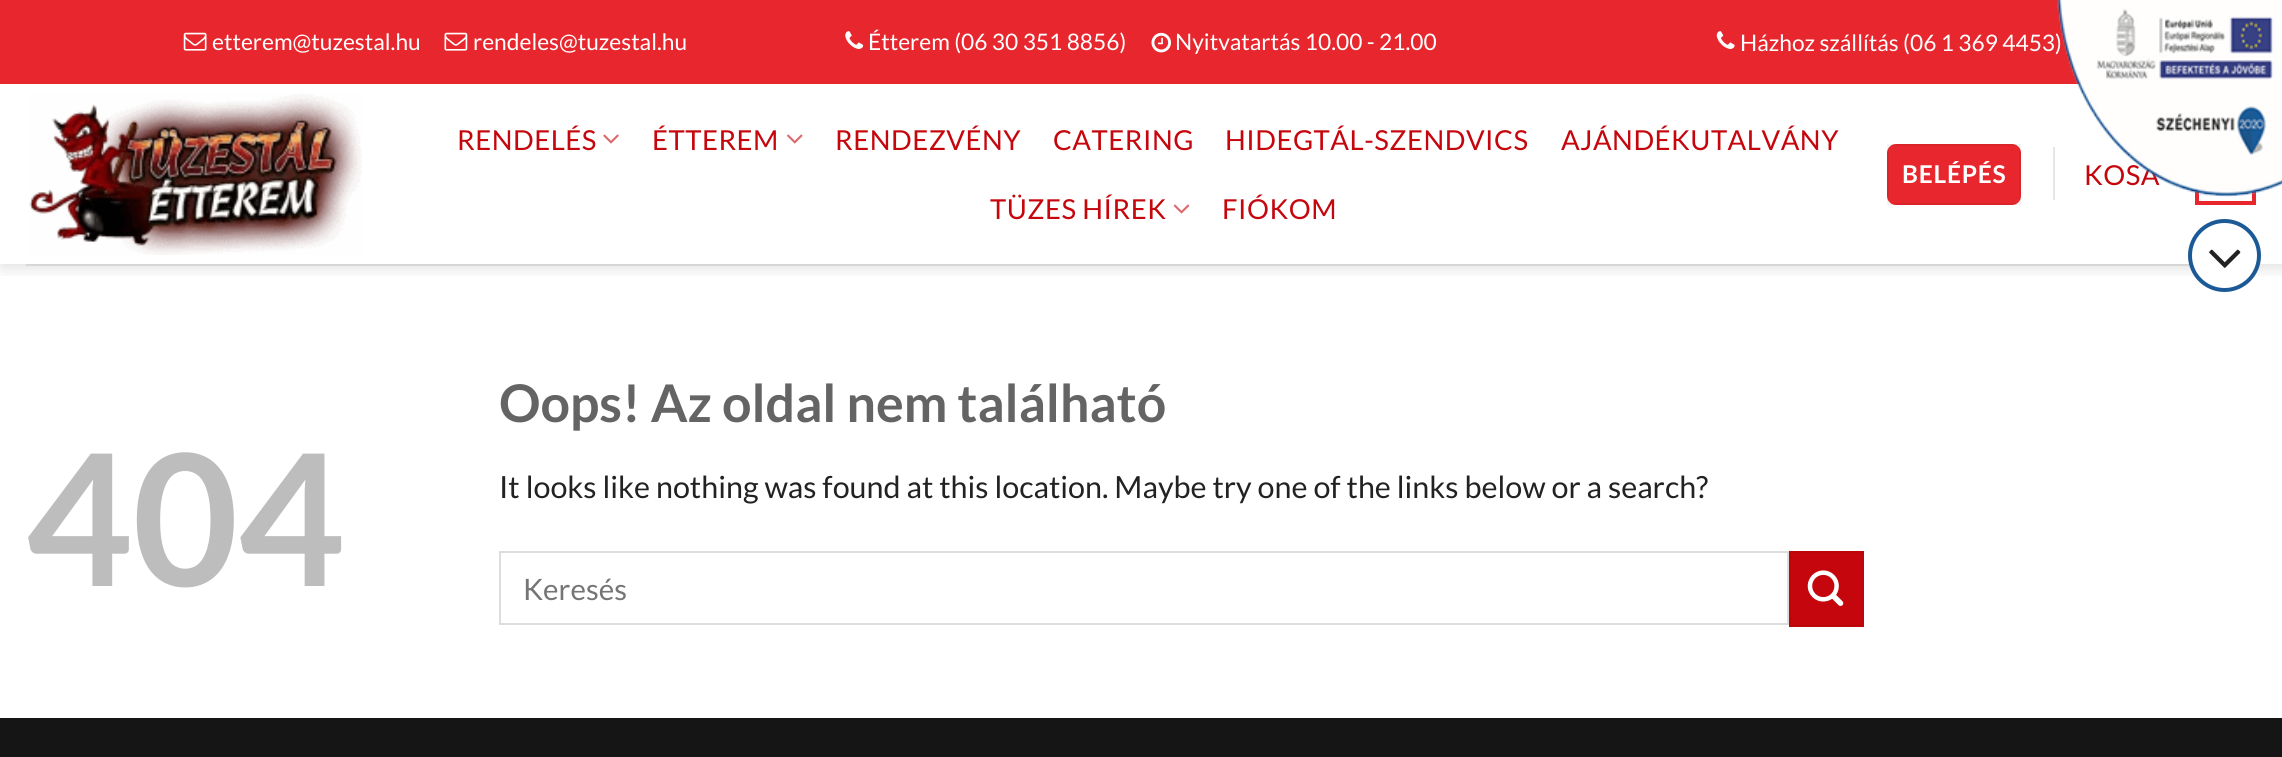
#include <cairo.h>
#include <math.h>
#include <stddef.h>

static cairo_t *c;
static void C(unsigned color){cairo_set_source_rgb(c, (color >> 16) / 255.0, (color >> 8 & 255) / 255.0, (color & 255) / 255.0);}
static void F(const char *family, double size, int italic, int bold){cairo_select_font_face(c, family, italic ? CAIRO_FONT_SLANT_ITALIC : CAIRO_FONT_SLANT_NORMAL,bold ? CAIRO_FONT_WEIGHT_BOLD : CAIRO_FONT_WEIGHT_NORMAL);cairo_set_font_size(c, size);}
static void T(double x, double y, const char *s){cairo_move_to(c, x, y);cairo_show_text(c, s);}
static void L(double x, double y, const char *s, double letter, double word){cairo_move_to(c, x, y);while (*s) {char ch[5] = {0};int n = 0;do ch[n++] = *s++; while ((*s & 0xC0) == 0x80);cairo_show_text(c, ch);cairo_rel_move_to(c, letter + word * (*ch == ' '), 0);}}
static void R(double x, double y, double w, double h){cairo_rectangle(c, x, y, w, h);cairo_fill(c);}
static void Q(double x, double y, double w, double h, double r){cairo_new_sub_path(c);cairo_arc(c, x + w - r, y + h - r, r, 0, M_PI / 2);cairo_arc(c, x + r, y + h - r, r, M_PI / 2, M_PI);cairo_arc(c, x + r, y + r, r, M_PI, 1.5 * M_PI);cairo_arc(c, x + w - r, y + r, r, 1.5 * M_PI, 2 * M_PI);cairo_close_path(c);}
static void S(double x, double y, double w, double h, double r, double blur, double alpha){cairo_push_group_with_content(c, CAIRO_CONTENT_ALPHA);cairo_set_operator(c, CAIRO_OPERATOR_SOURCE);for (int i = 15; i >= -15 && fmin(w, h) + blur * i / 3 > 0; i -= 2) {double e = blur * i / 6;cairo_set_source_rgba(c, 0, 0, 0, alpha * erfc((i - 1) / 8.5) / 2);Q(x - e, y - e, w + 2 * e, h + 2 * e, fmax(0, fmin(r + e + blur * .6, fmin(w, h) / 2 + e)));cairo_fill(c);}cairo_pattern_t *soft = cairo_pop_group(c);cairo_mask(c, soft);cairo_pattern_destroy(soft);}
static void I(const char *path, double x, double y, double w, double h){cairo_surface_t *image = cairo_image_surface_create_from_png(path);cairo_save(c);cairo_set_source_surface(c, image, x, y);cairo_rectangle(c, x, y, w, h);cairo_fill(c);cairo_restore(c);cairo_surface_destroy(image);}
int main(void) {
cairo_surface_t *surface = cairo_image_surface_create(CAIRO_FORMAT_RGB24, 2282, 757);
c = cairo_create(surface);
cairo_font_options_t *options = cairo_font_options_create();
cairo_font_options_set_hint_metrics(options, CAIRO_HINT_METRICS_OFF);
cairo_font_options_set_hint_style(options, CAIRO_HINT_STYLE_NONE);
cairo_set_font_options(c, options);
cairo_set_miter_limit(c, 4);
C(0xffffff);
cairo_paint(c);
cairo_save(c);
cairo_rectangle(c,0,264,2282,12);
cairo_clip(c);
C(0x000000);
S(2,2,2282,264,0,9,.15);
cairo_restore(c);
C(0xe7272d);
R(0,0,2080,84);
I("1.png",183,32,24,19);
F("Lato",22.75,0,0);
C(0xffffff);
T(212,50,"etterem@tuzestal.hu");
I("2.png",444,32,24,19);
T(473,50,"rendeles@tuzestal.hu");
I("3.png",845,31,19,18);
T(868,50,"Étterem (06 30 351 8856)");
I("4.png",1151,32,20,21);
T(1175,50,"Nyitvatartás 10.00 - 21.00");
I("5.png",1716,31,19,18);
T(1740,51,"Házhoz szállítás (06 1 369 4453)");
I("6.png",29,93,333,162);
F("Lato",27.5,0,0);
C(0xc5060c);
L(457,150,"RENDELÉS",.5,0);
I("7.png",603,134,16,10);
L(652,150,"ÉTTEREM",.5,0);
I("8.png",787,134,16,10);
L(835,150,"RENDEZVÉNY",.5,0);
L(1053,150,"CATERING",.5,0);
L(1225,150,"HIDEGTÁL-SZENDVICS",.5,0);
L(1561,150,"AJÁNDÉKUTALVÁNY",.5,0);
L(990,219,"TÜZES HÍREK",.5,0);
I("9.png",1173,204,17,10);
L(1222,219,"FIÓKOM",.5,0);
C(0xe7272d);
Q(1887,144,134,61,9);
cairo_fill(c);
cairo_rectangle(c,1888,145,132,59);
cairo_set_source_rgba(c,0,0,0,0.05);
cairo_stroke(c);
F("Lato",24.5,0,1);
C(0xffffff);
L(1902,183,"BELÉPÉS",.75,0);
C(0xe6e6e6);
R(2053,147,2,53);
F("Lato",27.5,0,0);
C(0xc5060c);
L(2084,185,"KOSÁ",.5,0);
cairo_rectangle(c,2197,146,57,57);
C(0xe7272d);
cairo_set_line_width(c,4);
cairo_stroke(c);
cairo_set_source_rgba(c,0.133,0.133,0.133,0.1);
R(26,264,2164,2);
F("Lato",183,0,1);
C(0xbdbdbd);
T(26,586,"404");
F("Lato",51.9,0,1);
C(0x646464);
T(499,422,"Oops! Az oldal nem található");
F("Lato",30.5,0,0);
C(0x222222);
T(499,498,"It looks like nothing was found at this location. Maybe try one of the links below or a search?");
cairo_rectangle(c,500,552,1288,72);
C(0xdddddd);
cairo_set_line_width(c,2);
cairo_stroke(c);
F("Lato",29.5,0,0);
C(0x757575);
T(523,600,"Keresés");
C(0xc5060c);
cairo_rectangle(c,1790,552,73,74);
cairo_fill_preserve(c);
C(0xbb060b);
cairo_stroke(c);
I("10.png",1807,570,37,36);
C(0x151515);
R(0,718,2282,39);
I("11.png",2057,0,225,197);
C(0xffffff);
cairo_arc(c,2224.5,255.5,34.5,0,2 * M_PI);
cairo_fill_preserve(c);
C(0x1b5a96);
cairo_set_line_width(c,4);
cairo_stroke(c);
I("12.png",2209,249,32,19);
cairo_surface_write_to_png(surface, "o.png");
cairo_font_options_destroy(options);
cairo_destroy(c);
cairo_surface_destroy(surface);
return 0;
}
